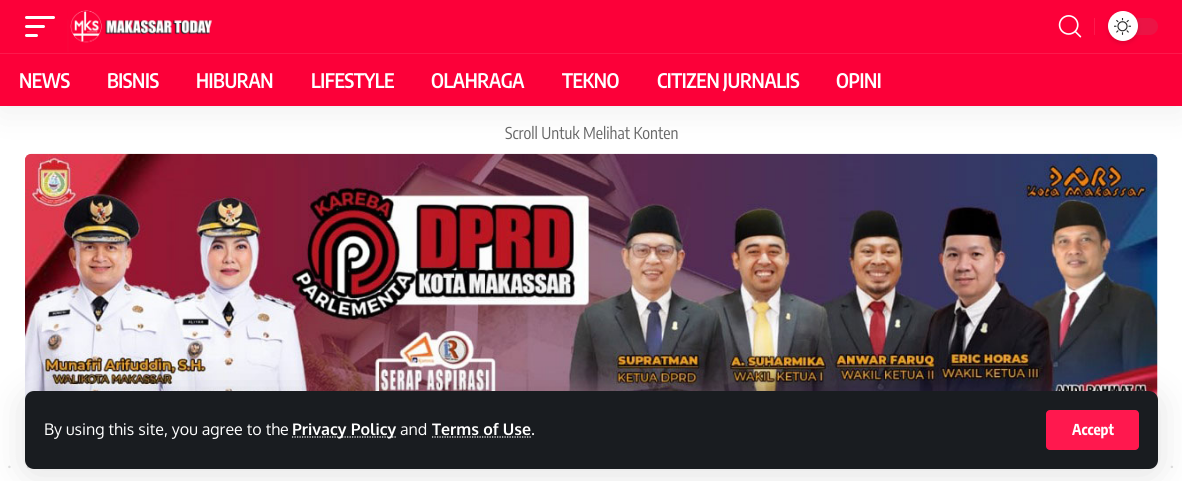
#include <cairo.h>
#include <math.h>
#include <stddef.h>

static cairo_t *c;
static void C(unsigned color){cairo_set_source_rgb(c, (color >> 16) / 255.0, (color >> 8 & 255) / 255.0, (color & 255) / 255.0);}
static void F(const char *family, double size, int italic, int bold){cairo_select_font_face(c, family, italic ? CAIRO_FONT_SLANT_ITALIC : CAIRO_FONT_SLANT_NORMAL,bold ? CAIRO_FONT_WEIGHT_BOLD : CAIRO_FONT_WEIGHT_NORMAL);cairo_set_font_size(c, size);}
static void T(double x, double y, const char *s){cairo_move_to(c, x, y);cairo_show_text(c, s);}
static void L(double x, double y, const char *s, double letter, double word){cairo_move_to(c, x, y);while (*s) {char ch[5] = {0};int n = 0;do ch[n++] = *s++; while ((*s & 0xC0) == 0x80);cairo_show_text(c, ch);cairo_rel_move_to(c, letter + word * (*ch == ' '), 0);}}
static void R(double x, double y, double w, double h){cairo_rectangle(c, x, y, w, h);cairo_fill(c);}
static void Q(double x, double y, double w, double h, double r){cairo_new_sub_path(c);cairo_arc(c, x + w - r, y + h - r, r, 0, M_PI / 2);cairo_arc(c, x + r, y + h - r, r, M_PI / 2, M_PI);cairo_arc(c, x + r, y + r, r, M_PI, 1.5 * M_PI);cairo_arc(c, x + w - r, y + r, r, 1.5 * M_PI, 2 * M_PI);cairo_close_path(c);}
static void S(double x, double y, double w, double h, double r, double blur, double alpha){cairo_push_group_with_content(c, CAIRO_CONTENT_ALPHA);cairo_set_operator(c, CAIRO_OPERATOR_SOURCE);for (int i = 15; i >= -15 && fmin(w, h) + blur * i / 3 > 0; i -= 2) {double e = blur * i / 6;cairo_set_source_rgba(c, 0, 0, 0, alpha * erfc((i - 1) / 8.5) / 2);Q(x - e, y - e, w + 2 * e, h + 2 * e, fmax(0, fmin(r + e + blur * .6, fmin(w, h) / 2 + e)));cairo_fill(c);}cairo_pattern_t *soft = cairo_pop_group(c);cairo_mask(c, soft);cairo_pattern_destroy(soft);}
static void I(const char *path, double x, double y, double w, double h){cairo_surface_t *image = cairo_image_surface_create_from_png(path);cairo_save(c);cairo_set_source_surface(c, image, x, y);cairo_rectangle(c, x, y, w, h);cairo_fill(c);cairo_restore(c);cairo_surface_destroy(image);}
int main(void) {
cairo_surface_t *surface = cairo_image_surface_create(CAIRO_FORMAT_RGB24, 1182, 481);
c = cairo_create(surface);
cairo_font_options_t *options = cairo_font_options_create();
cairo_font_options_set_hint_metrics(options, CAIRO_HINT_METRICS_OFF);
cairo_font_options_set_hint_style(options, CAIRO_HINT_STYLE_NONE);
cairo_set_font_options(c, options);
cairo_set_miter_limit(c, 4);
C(0xffffff);
cairo_paint(c);
I("4.png",25,153,1133,247);
C(0x000000);
S(0,5,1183,106,0,19,.07);
C(0xfc0039);
R(0,0,1182,106);
C(0xffffff);
Q(25,16,30,3,1.5);
cairo_fill(c);
Q(25,25,20,3,1.5);
cairo_fill(c);
Q(25,34,13,3,1.5);
cairo_fill(c);
I("1.png",67,10,146,42);
I("2.png",1058,15,24,23);
C(0xfc1a4d);
R(1094,18,1,17);
C(0xeb1445);
Q(1108,18,50,17,8.5);
cairo_fill(c);
C(0x000000);
S(1108,13,30,30,15,2.5,.12);
C(0xffffff);
cairo_arc(c,1123,26,15,0,2 * M_PI);
cairo_fill(c);
I("3.png",1114,18,17,17);
C(0xfc1a4d);
R(0,53,1182,1);
F("Encode Sans Condensed SemiBold",20,0,0);
C(0xffffff);
L(19,88,"NEWS",-.4,0);
L(107,88,"BISNIS",-.4,0);
L(196,88,"HIBURAN",-.4,0);
L(311,88,"LIFESTYLE",-.4,0);
L(431,88,"OLAHRAGA",-.4,0);
L(562,88,"TEKNO",-.4,0);
L(657,88,"CITIZEN JURNALIS",-.4,0);
L(836,88,"OPINI",-.4,0);
F("Encode Sans Condensed",16.25,0,0);
C(0x666666);
T(505,139,"Scroll Untuk Melihat Konten");
cairo_new_path(c);
cairo_move_to(c,9.4,466.9);
cairo_line_to(c,1172.1,466.9);
C(0xdfdfdf);
cairo_set_line_width(c,2.5);
cairo_set_line_cap(c,CAIRO_LINE_CAP_ROUND);
cairo_set_dash(c,(double[]){0,18.75},2,0);
cairo_stroke(c);
C(0x000000);
S(25,396,1133,78,9,19,.12);
C(0x191c20);
Q(25,391,1133,78,9);
cairo_fill(c);
F("Oxygen",16,0,0);
C(0xffffff);
T(44,435,"By using this site, you agree to the");
cairo_new_path(c);
cairo_move_to(c,292,437);
cairo_line_to(c,396.5,437);
cairo_set_line_width(c,1.2);
cairo_set_line_cap(c,CAIRO_LINE_CAP_BUTT);
cairo_set_dash(c,(double[]){1.25,1.25},2,0);
cairo_stroke(c);
F("Oxygen",16,0,1);
T(292,435,"Privacy Policy");
F("Oxygen",16,0,0);
T(400,435,"and");
F("Oxygen",16,0,1);
T(432,435,"Terms of Use");
cairo_new_path(c);
cairo_move_to(c,432,437);
cairo_line_to(c,531,437);
cairo_stroke(c);
F("Oxygen",16,0,0);
T(531,435,".");
C(0xff184e);
Q(1046,410,93,40,4);
cairo_fill(c);
F("Encode Sans Condensed",15,0,1);
C(0xffffff);
T(1072,435,"Accept");
cairo_surface_write_to_png(surface, "o.png");
cairo_font_options_destroy(options);
cairo_destroy(c);
cairo_surface_destroy(surface);
return 0;
}
